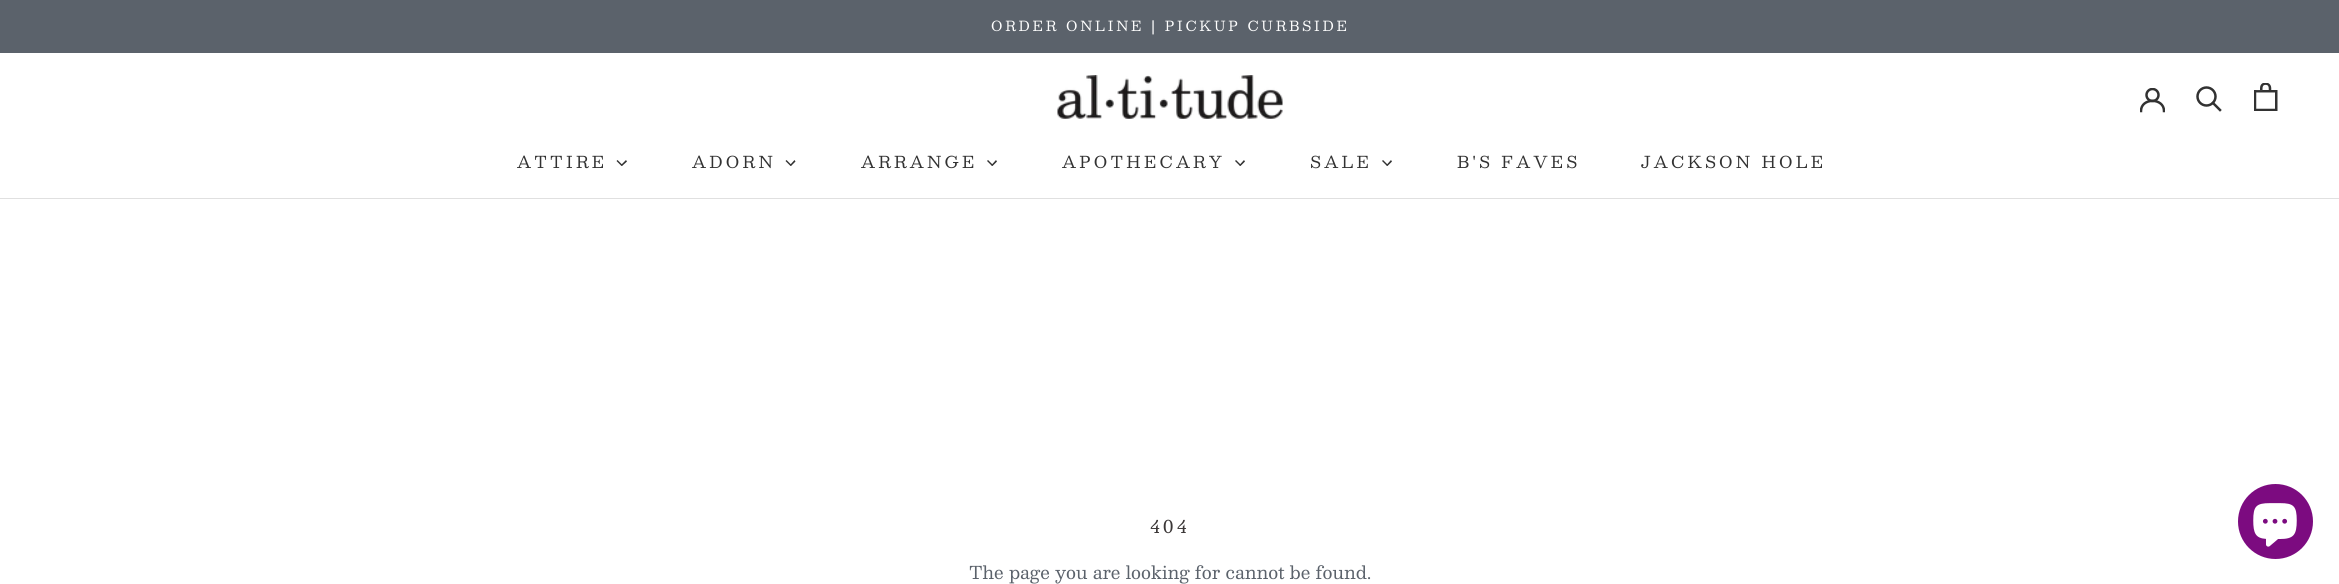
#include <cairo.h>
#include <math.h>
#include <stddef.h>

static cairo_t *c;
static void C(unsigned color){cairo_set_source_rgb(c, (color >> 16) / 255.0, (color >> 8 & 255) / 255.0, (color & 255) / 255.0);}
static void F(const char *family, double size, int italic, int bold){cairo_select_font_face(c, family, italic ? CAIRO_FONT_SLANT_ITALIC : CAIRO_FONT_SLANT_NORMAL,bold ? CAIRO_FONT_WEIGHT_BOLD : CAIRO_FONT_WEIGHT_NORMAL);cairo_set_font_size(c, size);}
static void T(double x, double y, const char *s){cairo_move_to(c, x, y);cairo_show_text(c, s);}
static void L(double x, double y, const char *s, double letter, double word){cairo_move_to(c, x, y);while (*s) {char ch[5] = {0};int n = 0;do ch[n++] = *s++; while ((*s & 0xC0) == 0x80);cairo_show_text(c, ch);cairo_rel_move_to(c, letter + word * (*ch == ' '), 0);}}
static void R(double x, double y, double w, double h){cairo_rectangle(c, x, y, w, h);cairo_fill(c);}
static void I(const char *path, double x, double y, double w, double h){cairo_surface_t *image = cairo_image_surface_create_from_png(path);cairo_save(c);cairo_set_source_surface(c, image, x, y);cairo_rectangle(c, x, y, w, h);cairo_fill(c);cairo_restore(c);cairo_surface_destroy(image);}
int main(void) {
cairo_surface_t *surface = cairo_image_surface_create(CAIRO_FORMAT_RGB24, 2339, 584);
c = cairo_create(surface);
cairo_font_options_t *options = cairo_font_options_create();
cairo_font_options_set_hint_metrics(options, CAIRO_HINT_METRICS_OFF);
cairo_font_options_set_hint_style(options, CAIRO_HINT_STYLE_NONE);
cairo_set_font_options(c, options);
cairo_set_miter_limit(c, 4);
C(0xffffff);
cairo_paint(c);
C(0x5b626b);
R(0,0,2339,53);
F("Besley",13.75,0,0);
C(0xffffff);
L(991,31,"ORDER ONLINE | PICKUP CURBSIDE",2.75,0);
C(0xe0e0e0);
R(0,198,2339,1);
I("1.png",1057,75,226,44);
cairo_save(c);
cairo_rectangle(c,2140,88,25,25);
cairo_clip(c);
cairo_new_path(c);
cairo_move_to(c,2141,111);
cairo_curve_to(c,2141,97.5,2164,97.5,2164,111);
C(0x323232);
cairo_set_line_width(c,2.5);
cairo_set_line_cap(c,CAIRO_LINE_CAP_SQUARE);
cairo_stroke(c);
cairo_arc(c,2152.5,95,6,0,2 * M_PI);
cairo_set_line_cap(c,CAIRO_LINE_CAP_BUTT);
cairo_stroke(c);
cairo_restore(c);
cairo_new_path(c);
cairo_move_to(c,2220,110);
cairo_line_to(c,2213,103);
C(0x323232);
cairo_set_line_width(c,2.5);
cairo_set_line_cap(c,CAIRO_LINE_CAP_SQUARE);
cairo_stroke(c);
cairo_arc(c,2206.5,96.5,9,0,2 * M_PI);
cairo_set_line_cap(c,CAIRO_LINE_CAP_BUTT);
cairo_stroke(c);
I("2.png",2254,83,24,28);
F("Besley",16.25,0,0);
L(517,168,"ATTIRE",3.25,0);
cairo_new_path(c);
cairo_move_to(c,626,160);
cairo_line_to(c,627,161.5);
cairo_line_to(c,622,166);
cairo_line_to(c,621,165);
cairo_close_path(c);
cairo_fill(c);
cairo_new_path(c);
cairo_move_to(c,617.5,160);
cairo_line_to(c,622.5,165);
cairo_line_to(c,621.5,166);
cairo_line_to(c,616.5,161);
cairo_close_path(c);
cairo_fill(c);
L(692,168,"ADORN",3.25,0);
cairo_new_path(c);
cairo_move_to(c,794.5,160);
cairo_line_to(c,795.5,161.5);
cairo_line_to(c,791,166);
cairo_line_to(c,790,165);
cairo_close_path(c);
cairo_fill(c);
cairo_new_path(c);
cairo_move_to(c,786.5,160);
cairo_line_to(c,791.5,165);
cairo_line_to(c,790.5,166);
cairo_line_to(c,785.5,161);
cairo_close_path(c);
cairo_fill(c);
L(861,168,"ARRANGE",3.25,0);
cairo_new_path(c);
cairo_move_to(c,996,160);
cairo_line_to(c,997,161.5);
cairo_line_to(c,992.5,166);
cairo_line_to(c,991.5,165);
cairo_close_path(c);
cairo_fill(c);
cairo_new_path(c);
cairo_move_to(c,988,160);
cairo_line_to(c,993,165);
cairo_line_to(c,992,166);
cairo_line_to(c,987,161);
cairo_close_path(c);
cairo_fill(c);
L(1062,168,"APOTHECARY",3.25,0);
cairo_new_path(c);
cairo_move_to(c,1244,160);
cairo_line_to(c,1245,161.5);
cairo_line_to(c,1240.5,166);
cairo_line_to(c,1239.5,165);
cairo_close_path(c);
cairo_fill(c);
cairo_new_path(c);
cairo_move_to(c,1236,160);
cairo_line_to(c,1241,165);
cairo_line_to(c,1240,166);
cairo_line_to(c,1235,161);
cairo_close_path(c);
cairo_fill(c);
L(1310,168,"SALE",3.25,0);
cairo_new_path(c);
cairo_move_to(c,1391,160);
cairo_line_to(c,1392,161.5);
cairo_line_to(c,1387.5,166);
cairo_line_to(c,1386.5,165);
cairo_close_path(c);
cairo_fill(c);
cairo_new_path(c);
cairo_move_to(c,1383,160);
cairo_line_to(c,1388,165);
cairo_line_to(c,1387,166);
cairo_line_to(c,1382,161);
cairo_close_path(c);
cairo_fill(c);
L(1457,168,"B'S FAVES",3.25,0);
L(1641,168,"JACKSON HOLE",3.25,0);
F("Besley",17.5,0,0);
C(0x3b3737);
L(1150,533,"404",3.5,0);
C(0x5b626b);
T(969,579,"The page you are looking for cannot be found.");
C(0x7c0b80);
cairo_new_path(c);
cairo_arc(c,2275.5,521.5,37.5,0,2 * M_PI);
cairo_fill(c);
I("3.png",2253,503,44,44);
cairo_surface_write_to_png(surface, "o.png");
cairo_font_options_destroy(options);
cairo_destroy(c);
cairo_surface_destroy(surface);
return 0;
}
